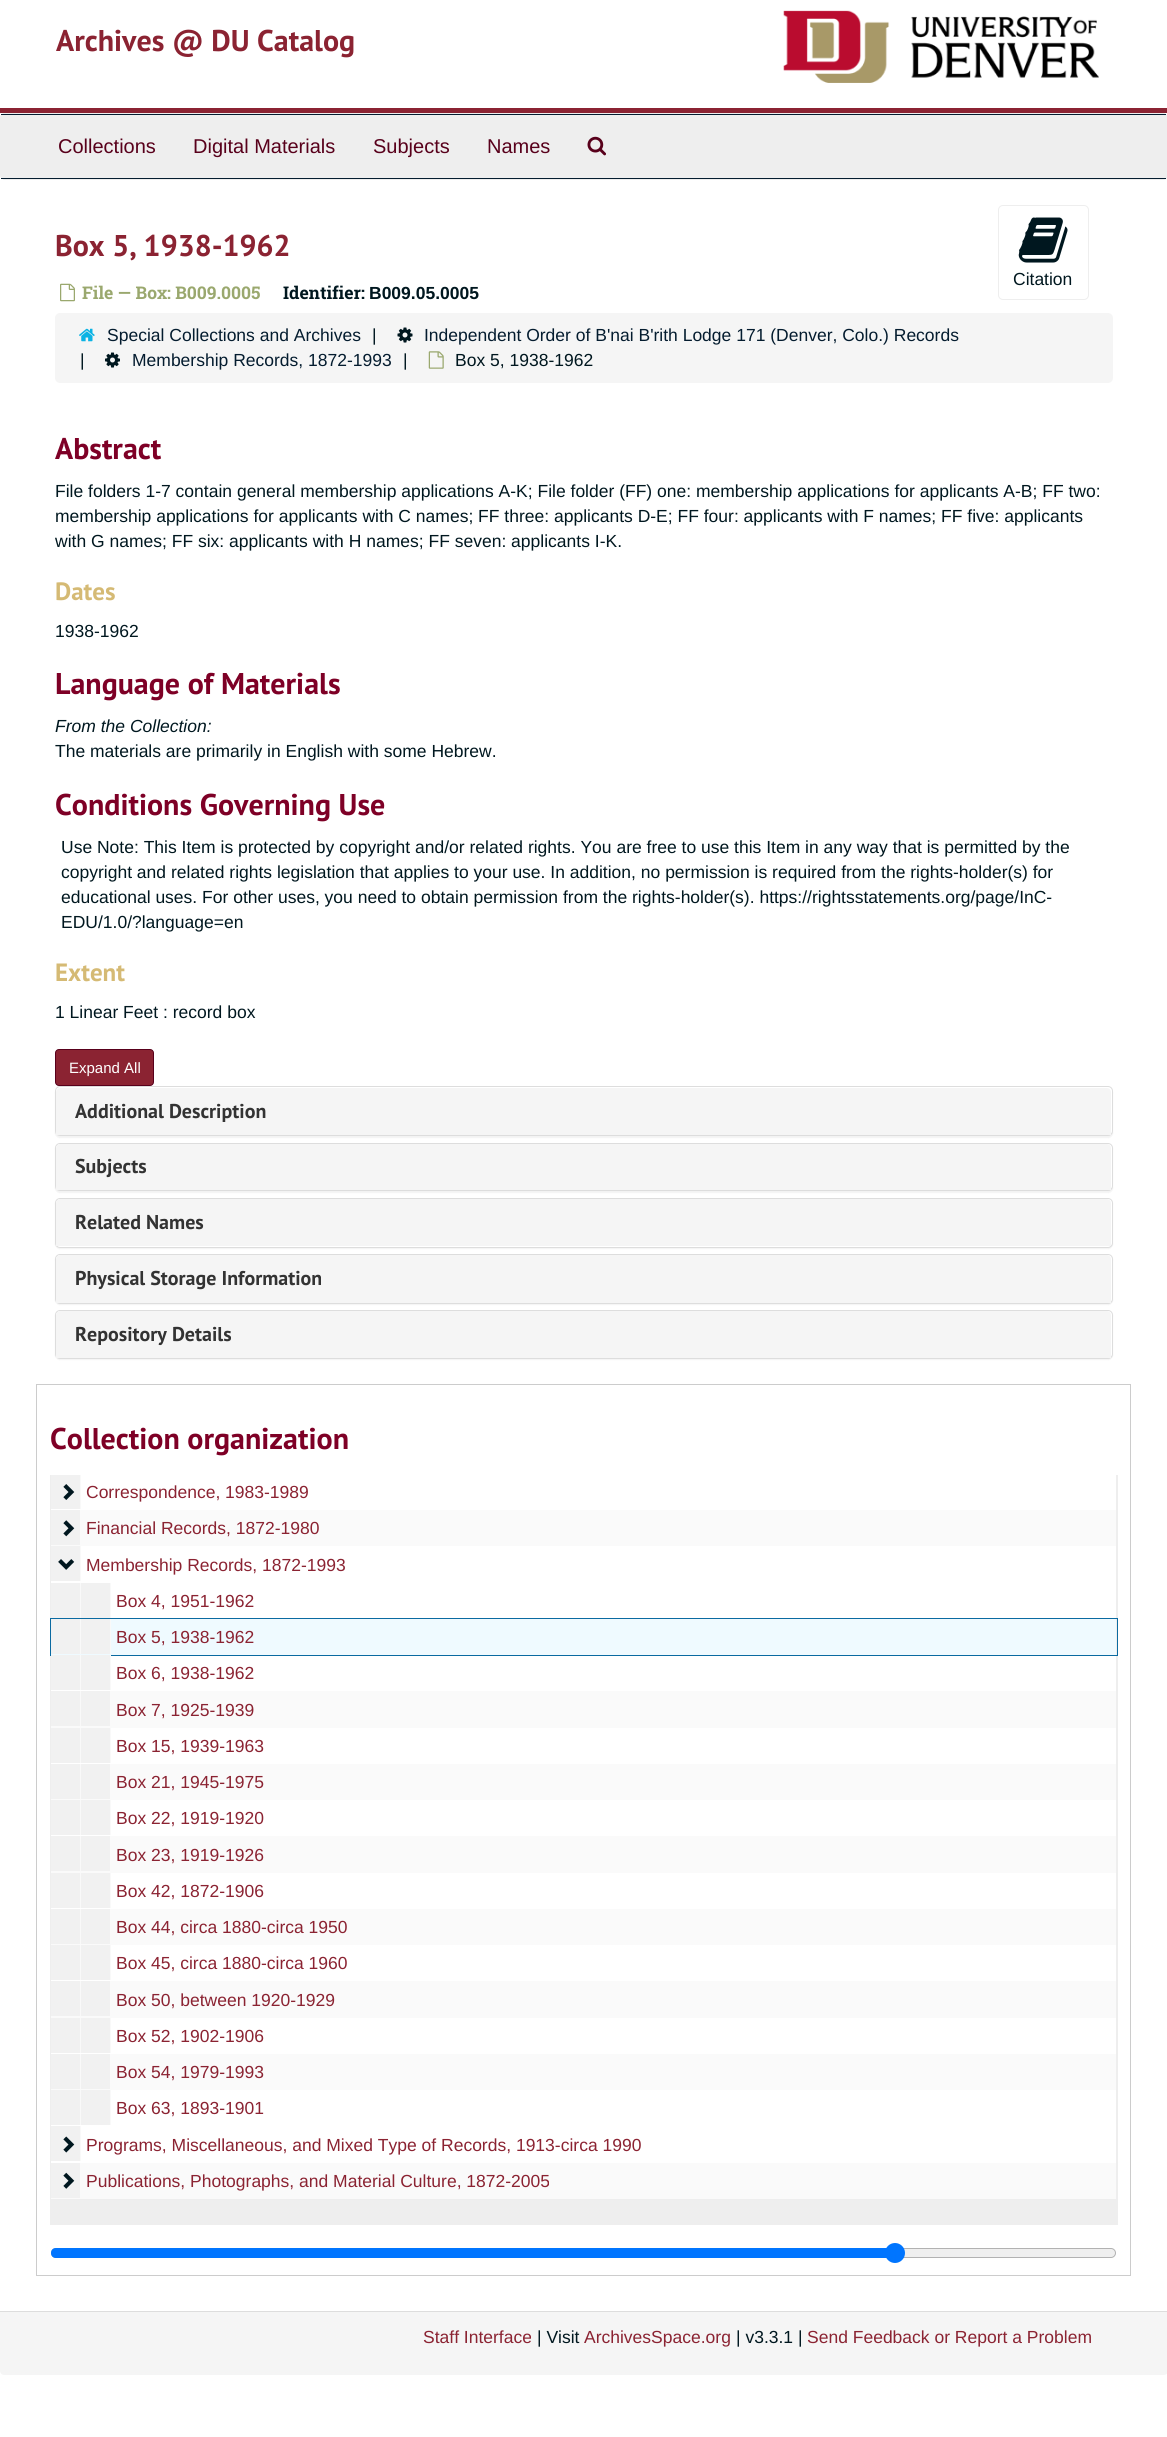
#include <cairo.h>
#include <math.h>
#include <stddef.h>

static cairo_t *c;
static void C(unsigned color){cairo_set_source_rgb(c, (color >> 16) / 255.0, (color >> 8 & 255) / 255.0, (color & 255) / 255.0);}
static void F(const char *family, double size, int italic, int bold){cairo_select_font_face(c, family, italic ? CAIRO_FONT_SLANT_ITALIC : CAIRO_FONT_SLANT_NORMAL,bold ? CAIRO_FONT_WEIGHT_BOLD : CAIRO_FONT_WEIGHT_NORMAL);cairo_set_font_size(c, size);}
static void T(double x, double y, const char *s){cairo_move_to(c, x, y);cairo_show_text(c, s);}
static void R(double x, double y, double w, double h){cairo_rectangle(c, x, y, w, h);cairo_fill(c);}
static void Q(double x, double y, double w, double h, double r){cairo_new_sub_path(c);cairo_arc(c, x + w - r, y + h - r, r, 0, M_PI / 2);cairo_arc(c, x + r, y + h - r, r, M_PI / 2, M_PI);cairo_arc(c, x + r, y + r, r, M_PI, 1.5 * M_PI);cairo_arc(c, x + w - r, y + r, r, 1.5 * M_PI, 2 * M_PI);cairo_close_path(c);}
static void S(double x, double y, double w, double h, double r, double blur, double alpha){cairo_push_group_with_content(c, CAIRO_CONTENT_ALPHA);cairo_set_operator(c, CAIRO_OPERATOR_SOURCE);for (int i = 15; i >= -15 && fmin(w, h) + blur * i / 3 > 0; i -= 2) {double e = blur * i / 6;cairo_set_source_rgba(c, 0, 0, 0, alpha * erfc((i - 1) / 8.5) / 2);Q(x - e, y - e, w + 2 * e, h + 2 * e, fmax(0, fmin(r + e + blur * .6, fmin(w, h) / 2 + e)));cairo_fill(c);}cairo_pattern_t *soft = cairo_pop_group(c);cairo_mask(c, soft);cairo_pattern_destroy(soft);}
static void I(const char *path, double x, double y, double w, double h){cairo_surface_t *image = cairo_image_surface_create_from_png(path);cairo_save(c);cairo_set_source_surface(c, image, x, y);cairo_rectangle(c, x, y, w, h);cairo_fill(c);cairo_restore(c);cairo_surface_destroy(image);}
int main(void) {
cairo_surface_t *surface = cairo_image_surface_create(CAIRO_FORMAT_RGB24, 1167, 2437);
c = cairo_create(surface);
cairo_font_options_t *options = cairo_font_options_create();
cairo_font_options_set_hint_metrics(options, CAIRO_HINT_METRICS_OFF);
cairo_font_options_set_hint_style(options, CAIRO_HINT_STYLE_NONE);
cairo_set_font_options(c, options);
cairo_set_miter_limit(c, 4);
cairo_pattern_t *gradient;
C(0xffffff);
cairo_paint(c);
C(0x8b2332);
R(0,108,1167,5);
F("PT Sans",30,0,1);
T(56,51,"Archives @ DU Catalog");
I("1.png",783,10,316,73);
C(0xeeeeee);
Q(.5,113.5,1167,66,4.5);
cairo_fill_preserve(c);
cairo_set_line_width(c,1);
cairo_stroke(c);
C(0x041c2f);
R(1,114,1165,1);
R(1,178,1165,1);
F("Liberation Sans",20,0,0);
C(0x58001b);
T(58,153,"Collections");
T(193,153,"Digital Materials");
T(373,153,"Subjects");
T(487,153,"Names");
I("2.png",587,136,19,20);
F("PT Sans",30,0,1);
C(0x8b2332);
T(55,256,"Box 5, 1938-1962");
I("3.png",60,283,15,19);
F("Roboto Slab",17.5,0,1);
C(0x9aa86e);
T(82,299,"File — Box: B009.0005");
C(0x00171f);
T(283,299,"Identifier:");
F("Liberation Sans",17.5,0,1);
T(369,299,"B009.05.0005");
Q(998.5,205.5,90,94,4.5);
C(0xeeeeee);
cairo_stroke(c);
I("4.png",1018,217,50,46);
F("Liberation Sans",17.5,0,0);
C(0x00171f);
T(1013,285,"Citation");
C(0xf5f5f5);
Q(55,313,1058,70,5);
cairo_fill(c);
I("5.png",79,328,16,14);
C(0x041c2f);
T(107,341,"Special Collections and Archives");
C(0x00171f);
T(372,341,"|");
I("6.png",397,327,16,16);
C(0x041c2f);
T(424,341,"Independent Order of B'nai B'rith Lodge 171 (Denver, Colo.) Records");
C(0x00171f);
T(80,366,"|");
I("7.png",105,352,15,16);
C(0x041c2f);
T(132,366,"Membership Records, 1872-1993");
C(0x00171f);
T(403,366,"|");
I("8.png",428,351,16,18);
T(455,366,"Box 5, 1938-1962");
F("PT Sans",30,0,1);
C(0x7e0026);
T(55,459,"Abstract");
F("Liberation Sans",17.5,0,0);
C(0x00171f);
T(55,497,"File folders 1-7 contain general membership applications A-K; File folder (FF) one: membership applications for applicants A-B; FF two:");
T(55,522,"membership applications for applicants with C names; FF three: applicants D-E; FF four: applicants with F names; FF five: applicants");
T(55,547,"with G names; FF six: applicants with H names; FF seven: applicants I-K.");
F("PT Sans",25,0,1);
C(0xd5ba74);
T(55,600,"Dates");
F("Liberation Sans",17.5,0,0);
C(0x00171f);
T(55,637,"1938-1962");
F("PT Sans",30,0,1);
C(0x7e0026);
T(55,694,"Language of Materials");
F("Liberation Sans",17.5,1,0);
C(0x00171f);
T(55,732,"From the Collection:");
F("Liberation Sans",17.5,0,0);
T(55,757,"The materials are primarily in English with some Hebrew.");
F("PT Sans",30,0,1);
C(0x7e0026);
T(55,815,"Conditions Governing Use");
F("Liberation Sans",17.5,0,0);
C(0x00171f);
T(61,853,"Use Note: This Item is protected by copyright and/or related rights. You are free to use this Item in any way that is permitted by the");
T(61,878,"copyright and related rights legislation that applies to your use. In addition, no permission is required from the rights-holder(s) for");
T(61,903,"educational uses. For other uses, you need to obtain permission from the rights-holder(s). https://rightsstatements.org/page/InC-");
T(61,928,"EDU/1.0/?language=en");
F("PT Sans",25,0,1);
C(0xd5ba74);
T(55,981,"Extent");
F("Liberation Sans",17.5,0,0);
C(0x00171f);
T(55,1018,"1 Linear Feet : record box");
C(0x000000);
S(55,1088,1058,50,5,.5,.05);
C(0x8b2332);
Q(55.5,1049.5,98,36,3.5);
cairo_fill_preserve(c);
C(0x58001b);
cairo_stroke(c);
F("Liberation Sans",15,0,0);
C(0xffffff);
T(69,1073,"Expand All");
Q(55.5,1086.5,1057,49,4.5);
cairo_fill_preserve(c);
C(0xdddddd);
cairo_stroke(c);
C(0xf5f5f5);
cairo_new_path(c);
cairo_move_to(c,60,1088);
cairo_line_to(c,1107,1088);
cairo_curve_to(c,1109,1088,1111,1090,1111,1092);
cairo_line_to(c,1111,1135);
cairo_line_to(c,56,1135);
cairo_line_to(c,56,1092);
cairo_curve_to(c,56,1090,58,1088,60,1088);
cairo_close_path(c);
cairo_fill(c);
F("PT Sans",20,0,1);
C(0x333333);
T(75,1118,"Additional Description");
C(0x000000);
S(55,1144,1058,49,5,.5,.05);
C(0xffffff);
Q(55.5,1143.5,1057,47,4.5);
cairo_fill_preserve(c);
C(0xdddddd);
cairo_stroke(c);
C(0xf5f5f5);
cairo_new_path(c);
cairo_move_to(c,60,1144);
cairo_line_to(c,1107,1144);
cairo_curve_to(c,1109,1144,1111,1146,1111,1148);
cairo_line_to(c,1111,1190);
cairo_line_to(c,56,1190);
cairo_line_to(c,56,1148);
cairo_curve_to(c,56,1146,58,1144,60,1144);
cairo_close_path(c);
cairo_fill(c);
C(0x333333);
T(75,1173,"Subjects");
C(0x000000);
S(55,1199,1058,50,5,.5,.05);
C(0xffffff);
Q(55.5,1198.5,1057,49,4.5);
cairo_fill_preserve(c);
C(0xdddddd);
cairo_stroke(c);
C(0xf5f5f5);
cairo_new_path(c);
cairo_move_to(c,60,1199);
cairo_line_to(c,1107,1199);
cairo_curve_to(c,1109,1199,1111,1201,1111,1203);
cairo_line_to(c,1111,1246);
cairo_line_to(c,56,1246);
cairo_line_to(c,56,1203);
cairo_curve_to(c,56,1201,58,1199,60,1199);
cairo_close_path(c);
cairo_fill(c);
C(0x333333);
T(75,1229,"Related Names");
C(0x000000);
S(55,1255,1058,50,5,.5,.05);
C(0xffffff);
Q(55.5,1254.5,1057,49,4.5);
cairo_fill_preserve(c);
C(0xdddddd);
cairo_stroke(c);
C(0xf5f5f5);
cairo_new_path(c);
cairo_move_to(c,60,1255);
cairo_line_to(c,1107,1255);
cairo_curve_to(c,1109,1255,1111,1257,1111,1259);
cairo_line_to(c,1111,1303);
cairo_line_to(c,56,1303);
cairo_line_to(c,56,1259);
cairo_curve_to(c,56,1257,58,1255,60,1255);
cairo_close_path(c);
cairo_fill(c);
C(0x333333);
T(75,1285,"Physical Storage Information");
C(0x000000);
S(55,1311,1058,49,5,.5,.05);
C(0xffffff);
Q(55.5,1310.5,1057,48,4.5);
cairo_fill_preserve(c);
C(0xdddddd);
cairo_stroke(c);
C(0xf5f5f5);
cairo_new_path(c);
cairo_move_to(c,60,1311);
cairo_line_to(c,1107,1311);
cairo_curve_to(c,1109,1311,1111,1313,1111,1315);
cairo_line_to(c,1111,1358);
cairo_line_to(c,56,1358);
cairo_line_to(c,56,1315);
cairo_curve_to(c,56,1313,58,1311,60,1311);
cairo_close_path(c);
cairo_fill(c);
C(0x333333);
T(75,1341,"Repository Details");
cairo_rectangle(c,36.5,1384.5,1094,891);
C(0xcccccc);
cairo_stroke(c);
F("PT Sans",30,0,1);
C(0x7e0026);
T(50,1449,"Collection organization");
C(0xeeeeee);
R(50,1475,1068,750);
C(0xffffff);
R(51,1475,1065,35);
gradient = cairo_pattern_create_linear(51,1491,81,1491);
cairo_pattern_add_color_stop_rgba(gradient,0,0.945,0.945,0.945,1);
cairo_pattern_add_color_stop_rgba(gradient,.96,0.945,0.945,0.945,1);
cairo_pattern_add_color_stop_rgba(gradient,1,1,1,1,1);
cairo_set_source(c,gradient);
cairo_pattern_destroy(gradient);
R(51,1475,30,34);
I("9.png",63,1484,12,16);
F("Liberation Sans",17.5,0,0);
C(0x8b2332);
T(86,1498,"Correspondence, 1983-1989");
C(0xfafafa);
R(51,1510,1065,36);
gradient = cairo_pattern_create_linear(51,1528,81,1528);
cairo_pattern_add_color_stop_rgba(gradient,0,0.945,0.945,0.945,1);
cairo_pattern_add_color_stop_rgba(gradient,.96,0.945,0.945,0.945,1);
cairo_pattern_add_color_stop_rgba(gradient,1,1,1,1,1);
cairo_set_source(c,gradient);
cairo_pattern_destroy(gradient);
R(51,1510,29,35);
I("10.png",63,1520,12,17);
C(0x8b2332);
T(86,1534,"Financial Records, 1872-1980");
C(0xffffff);
R(51,1546,1065,37);
gradient = cairo_pattern_create_linear(51,1564,81,1564);
cairo_pattern_add_color_stop_rgba(gradient,0,0.945,0.945,0.945,1);
cairo_pattern_add_color_stop_rgba(gradient,.96,0.945,0.945,0.945,1);
cairo_pattern_add_color_stop_rgba(gradient,1,1,1,1,1);
cairo_set_source(c,gradient);
cairo_pattern_destroy(gradient);
R(51,1546,30,35);
I("11.png",58,1559,17,11);
C(0x8b2332);
T(86,1571,"Membership Records, 1872-1993");
C(0xffffff);
R(111,1583,1005,35);
gradient = cairo_pattern_create_linear(51,1600,111,1600);
cairo_pattern_add_color_stop_rgba(gradient,0,0.945,0.945,0.945,1);
cairo_pattern_add_color_stop_rgba(gradient,.48,0.945,0.945,0.945,1);
cairo_pattern_add_color_stop_rgba(gradient,.5,1,1,1,1);
cairo_pattern_add_color_stop_rgba(gradient,.5,0.945,0.945,0.945,1);
cairo_pattern_add_color_stop_rgba(gradient,.98,0.945,0.945,0.945,1);
cairo_pattern_add_color_stop_rgba(gradient,1,1,1,1,1);
cairo_set_source(c,gradient);
cairo_pattern_destroy(gradient);
R(51,1583,60,35);
C(0x8b2332);
T(116,1607,"Box 4, 1951-1962");
cairo_rectangle(c,50.5,1618.5,1067,37);
C(0x0a6aa1);
cairo_stroke(c);
C(0xeffaff);
R(51,1619,1065,36);
gradient = cairo_pattern_create_linear(51,1636,111,1636);
cairo_pattern_add_color_stop_rgba(gradient,0,0.945,0.945,0.945,1);
cairo_pattern_add_color_stop_rgba(gradient,.48,0.945,0.945,0.945,1);
cairo_pattern_add_color_stop_rgba(gradient,.5,1,1,1,1);
cairo_pattern_add_color_stop_rgba(gradient,.5,0.945,0.945,0.945,1);
cairo_pattern_add_color_stop_rgba(gradient,.98,0.945,0.945,0.945,1);
cairo_pattern_add_color_stop_rgba(gradient,1,1,1,1,1);
cairo_set_source(c,gradient);
cairo_pattern_destroy(gradient);
R(51,1619,60,35);
C(0x8b2332);
T(116,1643,"Box 5, 1938-1962");
C(0xffffff);
R(51,1656,1065,35);
gradient = cairo_pattern_create_linear(51,1673,111,1673);
cairo_pattern_add_color_stop_rgba(gradient,0,0.945,0.945,0.945,1);
cairo_pattern_add_color_stop_rgba(gradient,.48,0.945,0.945,0.945,1);
cairo_pattern_add_color_stop_rgba(gradient,.5,1,1,1,1);
cairo_pattern_add_color_stop_rgba(gradient,.5,0.945,0.945,0.945,1);
cairo_pattern_add_color_stop_rgba(gradient,.98,0.945,0.945,0.945,1);
cairo_pattern_add_color_stop_rgba(gradient,1,1,1,1,1);
cairo_set_source(c,gradient);
cairo_pattern_destroy(gradient);
R(51,1655,60,35);
C(0x8b2332);
T(116,1679,"Box 6, 1938-1962");
C(0xfafafa);
R(51,1691,1065,37);
gradient = cairo_pattern_create_linear(51,1709,111,1709);
cairo_pattern_add_color_stop_rgba(gradient,0,0.945,0.945,0.945,1);
cairo_pattern_add_color_stop_rgba(gradient,.48,0.945,0.945,0.945,1);
cairo_pattern_add_color_stop_rgba(gradient,.5,1,1,1,1);
cairo_pattern_add_color_stop_rgba(gradient,.5,0.945,0.945,0.945,1);
cairo_pattern_add_color_stop_rgba(gradient,.98,0.945,0.945,0.945,1);
cairo_pattern_add_color_stop_rgba(gradient,1,1,1,1,1);
cairo_set_source(c,gradient);
cairo_pattern_destroy(gradient);
R(51,1691,59,35);
C(0x8b2332);
T(116,1716,"Box 7, 1925-1939");
C(0xffffff);
R(51,1728,1065,36);
gradient = cairo_pattern_create_linear(51,1745,111,1745);
cairo_pattern_add_color_stop_rgba(gradient,0,0.945,0.945,0.945,1);
cairo_pattern_add_color_stop_rgba(gradient,.48,0.945,0.945,0.945,1);
cairo_pattern_add_color_stop_rgba(gradient,.5,1,1,1,1);
cairo_pattern_add_color_stop_rgba(gradient,.5,0.945,0.945,0.945,1);
cairo_pattern_add_color_stop_rgba(gradient,.98,0.945,0.945,0.945,1);
cairo_pattern_add_color_stop_rgba(gradient,1,1,1,1,1);
cairo_set_source(c,gradient);
cairo_pattern_destroy(gradient);
R(51,1728,60,35);
C(0x8b2332);
T(116,1752,"Box 15, 1939-1963");
C(0xfafafa);
R(51,1764,1065,36);
gradient = cairo_pattern_create_linear(51,1781,111,1781);
cairo_pattern_add_color_stop_rgba(gradient,0,0.945,0.945,0.945,1);
cairo_pattern_add_color_stop_rgba(gradient,.48,0.945,0.945,0.945,1);
cairo_pattern_add_color_stop_rgba(gradient,.5,1,1,1,1);
cairo_pattern_add_color_stop_rgba(gradient,.5,0.945,0.945,0.945,1);
cairo_pattern_add_color_stop_rgba(gradient,.98,0.945,0.945,0.945,1);
cairo_pattern_add_color_stop_rgba(gradient,1,1,1,1,1);
cairo_set_source(c,gradient);
cairo_pattern_destroy(gradient);
R(51,1764,59,35);
C(0x8b2332);
T(116,1788,"Box 21, 1945-1975");
C(0xffffff);
R(51,1800,1065,36);
gradient = cairo_pattern_create_linear(51,1818,111,1818);
cairo_pattern_add_color_stop_rgba(gradient,0,0.945,0.945,0.945,1);
cairo_pattern_add_color_stop_rgba(gradient,.48,0.945,0.945,0.945,1);
cairo_pattern_add_color_stop_rgba(gradient,.5,1,1,1,1);
cairo_pattern_add_color_stop_rgba(gradient,.5,0.945,0.945,0.945,1);
cairo_pattern_add_color_stop_rgba(gradient,.98,0.945,0.945,0.945,1);
cairo_pattern_add_color_stop_rgba(gradient,1,1,1,1,1);
cairo_set_source(c,gradient);
cairo_pattern_destroy(gradient);
R(51,1800,60,35);
C(0x8b2332);
T(116,1824,"Box 22, 1919-1920");
C(0xfafafa);
R(51,1836,1065,37);
gradient = cairo_pattern_create_linear(51,1854,111,1854);
cairo_pattern_add_color_stop_rgba(gradient,0,0.945,0.945,0.945,1);
cairo_pattern_add_color_stop_rgba(gradient,.48,0.945,0.945,0.945,1);
cairo_pattern_add_color_stop_rgba(gradient,.5,1,1,1,1);
cairo_pattern_add_color_stop_rgba(gradient,.5,0.945,0.945,0.945,1);
cairo_pattern_add_color_stop_rgba(gradient,.98,0.945,0.945,0.945,1);
cairo_pattern_add_color_stop_rgba(gradient,1,1,1,1,1);
cairo_set_source(c,gradient);
cairo_pattern_destroy(gradient);
R(51,1836,59,35);
C(0x8b2332);
T(116,1861,"Box 23, 1919-1926");
C(0xffffff);
R(51,1873,1065,36);
gradient = cairo_pattern_create_linear(51,1890,111,1890);
cairo_pattern_add_color_stop_rgba(gradient,0,0.945,0.945,0.945,1);
cairo_pattern_add_color_stop_rgba(gradient,.48,0.945,0.945,0.945,1);
cairo_pattern_add_color_stop_rgba(gradient,.5,1,1,1,1);
cairo_pattern_add_color_stop_rgba(gradient,.5,0.945,0.945,0.945,1);
cairo_pattern_add_color_stop_rgba(gradient,.98,0.945,0.945,0.945,1);
cairo_pattern_add_color_stop_rgba(gradient,1,1,1,1,1);
cairo_set_source(c,gradient);
cairo_pattern_destroy(gradient);
R(51,1873,60,35);
C(0x8b2332);
T(116,1897,"Box 42, 1872-1906");
C(0xfafafa);
R(51,1909,1065,36);
gradient = cairo_pattern_create_linear(51,1926,111,1926);
cairo_pattern_add_color_stop_rgba(gradient,0,0.945,0.945,0.945,1);
cairo_pattern_add_color_stop_rgba(gradient,.48,0.945,0.945,0.945,1);
cairo_pattern_add_color_stop_rgba(gradient,.5,1,1,1,1);
cairo_pattern_add_color_stop_rgba(gradient,.5,0.945,0.945,0.945,1);
cairo_pattern_add_color_stop_rgba(gradient,.98,0.945,0.945,0.945,1);
cairo_pattern_add_color_stop_rgba(gradient,1,1,1,1,1);
cairo_set_source(c,gradient);
cairo_pattern_destroy(gradient);
R(51,1909,59,35);
C(0x8b2332);
T(116,1933,"Box 44, circa 1880-circa 1950");
C(0xffffff);
R(51,1945,1065,36);
gradient = cairo_pattern_create_linear(51,1963,111,1963);
cairo_pattern_add_color_stop_rgba(gradient,0,0.945,0.945,0.945,1);
cairo_pattern_add_color_stop_rgba(gradient,.48,0.945,0.945,0.945,1);
cairo_pattern_add_color_stop_rgba(gradient,.5,1,1,1,1);
cairo_pattern_add_color_stop_rgba(gradient,.5,0.945,0.945,0.945,1);
cairo_pattern_add_color_stop_rgba(gradient,.98,0.945,0.945,0.945,1);
cairo_pattern_add_color_stop_rgba(gradient,1,1,1,1,1);
cairo_set_source(c,gradient);
cairo_pattern_destroy(gradient);
R(51,1945,60,35);
C(0x8b2332);
T(116,1969,"Box 45, circa 1880-circa 1960");
C(0xfafafa);
R(51,1981,1065,37);
gradient = cairo_pattern_create_linear(51,1999,111,1999);
cairo_pattern_add_color_stop_rgba(gradient,0,0.945,0.945,0.945,1);
cairo_pattern_add_color_stop_rgba(gradient,.48,0.945,0.945,0.945,1);
cairo_pattern_add_color_stop_rgba(gradient,.5,1,1,1,1);
cairo_pattern_add_color_stop_rgba(gradient,.5,0.945,0.945,0.945,1);
cairo_pattern_add_color_stop_rgba(gradient,.98,0.945,0.945,0.945,1);
cairo_pattern_add_color_stop_rgba(gradient,1,1,1,1,1);
cairo_set_source(c,gradient);
cairo_pattern_destroy(gradient);
R(51,1981,59,35);
C(0x8b2332);
T(116,2006,"Box 50, between 1920-1929");
C(0xffffff);
R(51,2018,1065,36);
gradient = cairo_pattern_create_linear(51,2035,111,2035);
cairo_pattern_add_color_stop_rgba(gradient,0,0.945,0.945,0.945,1);
cairo_pattern_add_color_stop_rgba(gradient,.48,0.945,0.945,0.945,1);
cairo_pattern_add_color_stop_rgba(gradient,.5,1,1,1,1);
cairo_pattern_add_color_stop_rgba(gradient,.5,0.945,0.945,0.945,1);
cairo_pattern_add_color_stop_rgba(gradient,.98,0.945,0.945,0.945,1);
cairo_pattern_add_color_stop_rgba(gradient,1,1,1,1,1);
cairo_set_source(c,gradient);
cairo_pattern_destroy(gradient);
R(51,2018,60,35);
C(0x8b2332);
T(116,2042,"Box 52, 1902-1906");
C(0xfafafa);
R(51,2054,1065,36);
gradient = cairo_pattern_create_linear(51,2071,111,2071);
cairo_pattern_add_color_stop_rgba(gradient,0,0.945,0.945,0.945,1);
cairo_pattern_add_color_stop_rgba(gradient,.48,0.945,0.945,0.945,1);
cairo_pattern_add_color_stop_rgba(gradient,.5,1,1,1,1);
cairo_pattern_add_color_stop_rgba(gradient,.5,0.945,0.945,0.945,1);
cairo_pattern_add_color_stop_rgba(gradient,.98,0.945,0.945,0.945,1);
cairo_pattern_add_color_stop_rgba(gradient,1,1,1,1,1);
cairo_set_source(c,gradient);
cairo_pattern_destroy(gradient);
R(51,2054,59,35);
C(0x8b2332);
T(116,2078,"Box 54, 1979-1993");
C(0xffffff);
R(51,2090,1065,73);
gradient = cairo_pattern_create_linear(51,2108,111,2108);
cairo_pattern_add_color_stop_rgba(gradient,0,0.945,0.945,0.945,1);
cairo_pattern_add_color_stop_rgba(gradient,.48,0.945,0.945,0.945,1);
cairo_pattern_add_color_stop_rgba(gradient,.5,1,1,1,1);
cairo_pattern_add_color_stop_rgba(gradient,.5,0.945,0.945,0.945,1);
cairo_pattern_add_color_stop_rgba(gradient,.98,0.945,0.945,0.945,1);
cairo_pattern_add_color_stop_rgba(gradient,1,1,1,1,1);
cairo_set_source(c,gradient);
cairo_pattern_destroy(gradient);
R(51,2090,60,35);
C(0x8b2332);
T(116,2114,"Box 63, 1893-1901");
gradient = cairo_pattern_create_linear(51,2144,81,2144);
cairo_pattern_add_color_stop_rgba(gradient,0,0.945,0.945,0.945,1);
cairo_pattern_add_color_stop_rgba(gradient,.96,0.945,0.945,0.945,1);
cairo_pattern_add_color_stop_rgba(gradient,1,1,1,1,1);
cairo_set_source(c,gradient);
cairo_pattern_destroy(gradient);
R(51,2126,30,35);
I("12.png",63,2136,12,17);
C(0x8b2332);
T(86,2151,"Programs, Miscellaneous, and Mixed Type of Records, 1913-circa 1990");
C(0xfafafa);
R(51,2163,1065,36);
gradient = cairo_pattern_create_linear(51,2180,81,2180);
cairo_pattern_add_color_stop_rgba(gradient,0,0.945,0.945,0.945,1);
cairo_pattern_add_color_stop_rgba(gradient,.96,0.945,0.945,0.945,1);
cairo_pattern_add_color_stop_rgba(gradient,1,1,1,1,1);
cairo_set_source(c,gradient);
cairo_pattern_destroy(gradient);
R(51,2163,29,35);
I("13.png",63,2172,12,17);
C(0x8b2332);
T(86,2187,"Publications, Photographs, and Material Culture, 1872-2005");
C(0xefefef);
Q(51.5,2248.5,1064,9,4.5);
cairo_fill_preserve(c);
C(0xb2b2b2);
cairo_stroke(c);
C(0x0075ff);
cairo_new_path(c);
cairo_move_to(c,56,2248);
cairo_line_to(c,895,2248);
cairo_line_to(c,895,2258);
cairo_line_to(c,56,2258);
cairo_curve_to(c,53,2258,51,2256,51,2253);
cairo_curve_to(c,51,2250,53,2248,56,2248);
cairo_close_path(c);
cairo_fill(c);
cairo_arc(c,895,2253,10,0,2 * M_PI);
cairo_fill(c);
C(0xf5f5f5);
cairo_new_path(c);
cairo_move_to(c,0,2311);
cairo_line_to(c,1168,2311);
cairo_line_to(c,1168,2371);
cairo_curve_to(c,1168,2373,1166,2375,1164,2375);
cairo_line_to(c,4,2375);
cairo_curve_to(c,2,2375,0,2373,0,2371);
cairo_close_path(c);
cairo_fill(c);
C(0xdddddd);
R(0,2311,1167,1);
C(0x8b2332);
T(423,2343,"Staff Interface");
C(0x00171f);
T(537,2343,"| Visit");
C(0x8b2332);
T(584,2343,"ArchivesSpace.org");
C(0x00171f);
T(736,2343,"| v3.3.1 |");
C(0x8b2332);
T(807,2343,"Send Feedback or Report a Problem");
cairo_surface_write_to_png(surface, "o.png");
cairo_font_options_destroy(options);
cairo_destroy(c);
cairo_surface_destroy(surface);
return 0;
}
